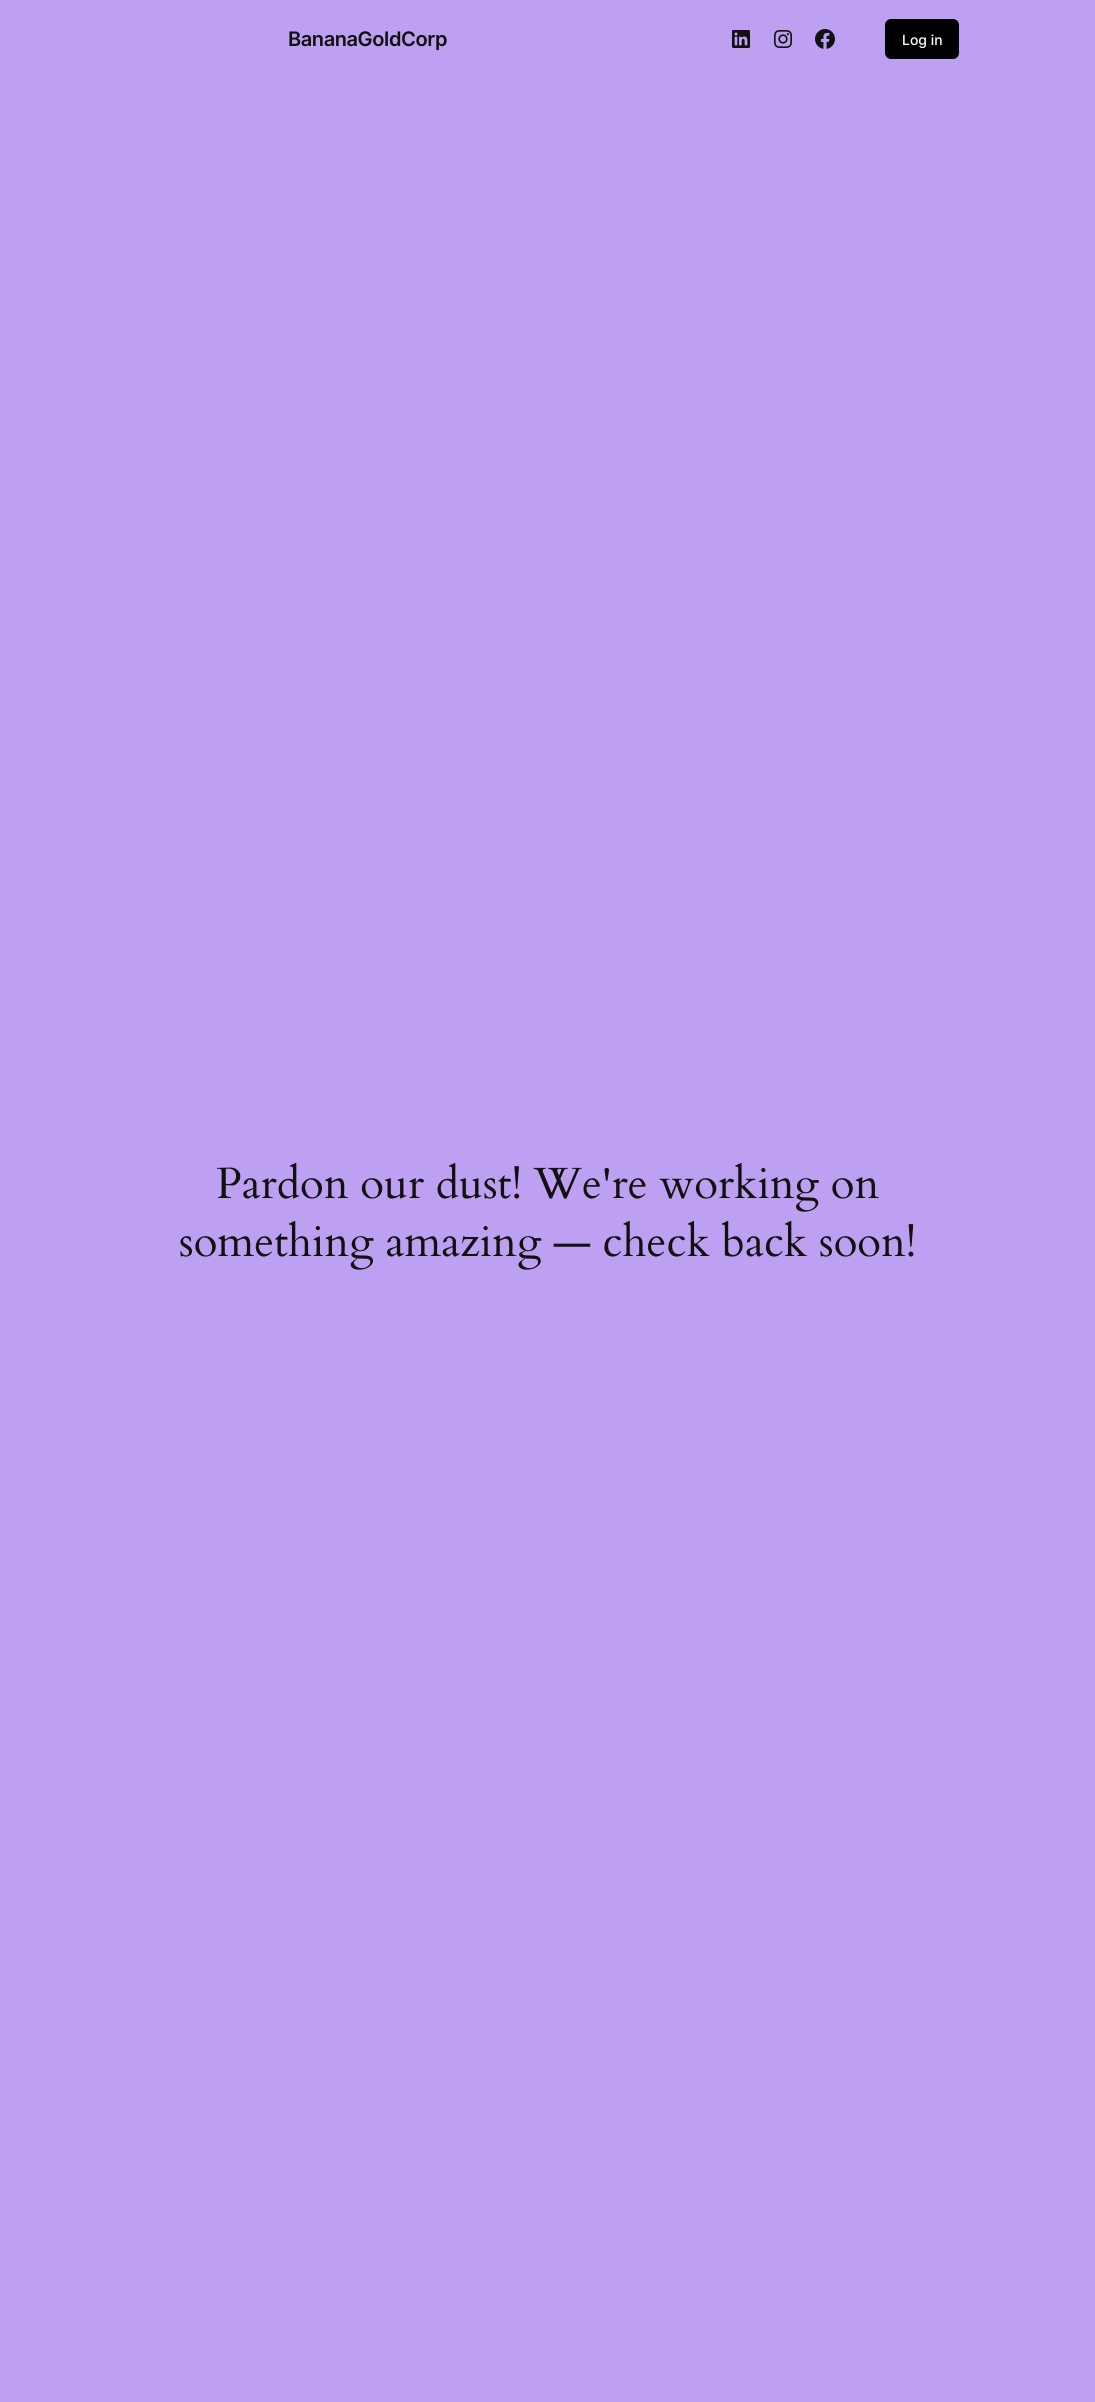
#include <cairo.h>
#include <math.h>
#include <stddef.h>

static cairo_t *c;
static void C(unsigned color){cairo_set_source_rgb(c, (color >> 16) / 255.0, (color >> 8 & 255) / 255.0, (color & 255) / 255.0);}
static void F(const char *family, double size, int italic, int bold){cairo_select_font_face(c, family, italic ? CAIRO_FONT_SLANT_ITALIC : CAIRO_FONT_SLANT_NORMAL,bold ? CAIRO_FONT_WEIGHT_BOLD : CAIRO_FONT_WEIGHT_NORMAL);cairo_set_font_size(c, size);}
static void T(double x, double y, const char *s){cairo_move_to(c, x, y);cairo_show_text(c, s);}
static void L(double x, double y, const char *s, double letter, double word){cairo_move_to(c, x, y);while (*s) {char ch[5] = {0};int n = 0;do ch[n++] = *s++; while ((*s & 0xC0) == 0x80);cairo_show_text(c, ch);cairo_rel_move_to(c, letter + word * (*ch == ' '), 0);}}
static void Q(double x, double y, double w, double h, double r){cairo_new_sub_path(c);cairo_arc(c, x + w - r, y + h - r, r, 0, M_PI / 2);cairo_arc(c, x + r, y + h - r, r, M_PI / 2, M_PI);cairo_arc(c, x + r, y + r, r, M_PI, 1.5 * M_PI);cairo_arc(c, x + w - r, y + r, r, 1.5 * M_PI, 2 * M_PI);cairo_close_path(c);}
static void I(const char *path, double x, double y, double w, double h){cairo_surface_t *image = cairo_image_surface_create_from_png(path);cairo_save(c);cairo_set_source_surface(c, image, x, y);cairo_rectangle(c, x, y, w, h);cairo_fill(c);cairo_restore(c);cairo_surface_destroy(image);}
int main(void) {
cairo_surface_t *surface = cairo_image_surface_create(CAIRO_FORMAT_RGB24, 1095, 2402);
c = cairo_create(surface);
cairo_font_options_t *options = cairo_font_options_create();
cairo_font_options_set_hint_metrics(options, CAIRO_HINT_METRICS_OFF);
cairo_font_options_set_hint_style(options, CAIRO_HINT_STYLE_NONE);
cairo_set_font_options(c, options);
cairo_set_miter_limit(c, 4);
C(0xbea0f2);
cairo_paint(c);
F("Inter SemiBold",20,0,0);
C(0x111111);
L(288,46,"BananaGoldCorp",-.4,0);
I("1.png",732,30,18,18);
I("2.png",774,30,18,18);
I("3.png",815,29,20,20);
C(0x000000);
Q(885,19,74,40,6);
cairo_fill(c);
F("Inter Medium",14,0,0);
C(0xffffff);
T(902,45,"Log in");
F("Cardo",43.75,0,0);
C(0x111111);
T(216,1198,"Pardon our dust! We're working on");
T(179,1256,"something amazing — check back soon!");
cairo_surface_write_to_png(surface, "o.png");
cairo_font_options_destroy(options);
cairo_destroy(c);
cairo_surface_destroy(surface);
return 0;
}
